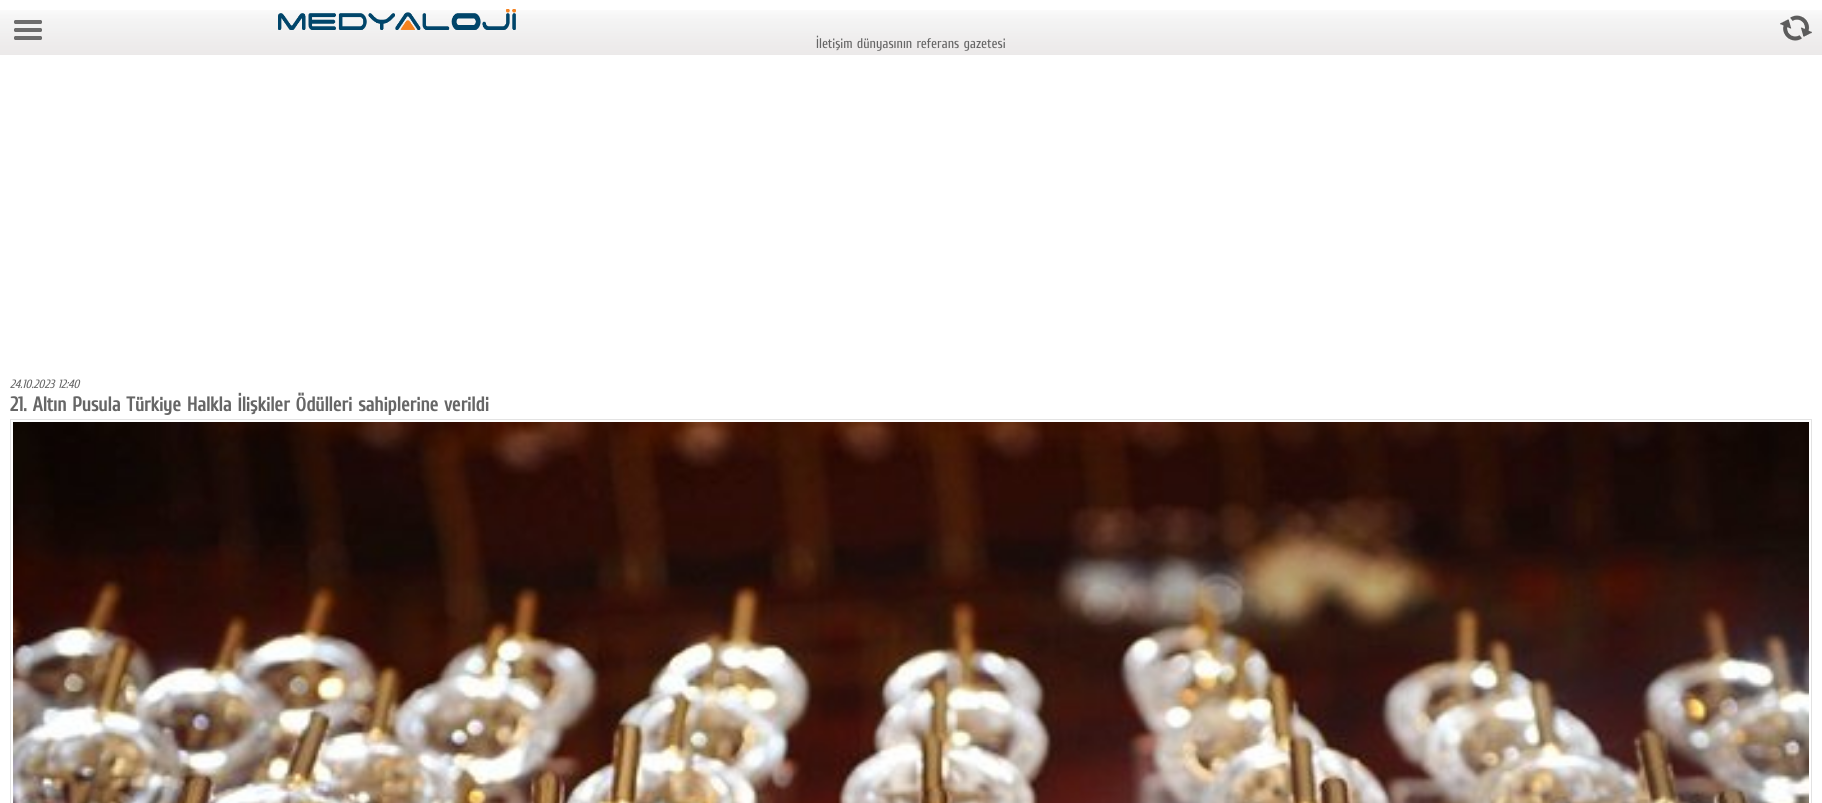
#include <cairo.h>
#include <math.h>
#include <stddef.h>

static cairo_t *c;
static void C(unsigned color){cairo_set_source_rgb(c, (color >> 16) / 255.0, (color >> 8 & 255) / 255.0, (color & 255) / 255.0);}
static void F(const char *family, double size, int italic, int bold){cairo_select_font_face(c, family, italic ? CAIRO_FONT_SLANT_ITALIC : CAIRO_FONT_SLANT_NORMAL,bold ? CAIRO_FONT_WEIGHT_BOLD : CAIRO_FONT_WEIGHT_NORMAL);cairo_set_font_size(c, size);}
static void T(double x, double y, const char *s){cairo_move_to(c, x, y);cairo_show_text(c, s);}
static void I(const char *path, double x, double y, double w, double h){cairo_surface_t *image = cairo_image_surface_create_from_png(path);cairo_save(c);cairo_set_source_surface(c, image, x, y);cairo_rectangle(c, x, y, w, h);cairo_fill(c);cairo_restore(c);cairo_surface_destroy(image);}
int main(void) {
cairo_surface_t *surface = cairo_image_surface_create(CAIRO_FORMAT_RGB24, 1822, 803);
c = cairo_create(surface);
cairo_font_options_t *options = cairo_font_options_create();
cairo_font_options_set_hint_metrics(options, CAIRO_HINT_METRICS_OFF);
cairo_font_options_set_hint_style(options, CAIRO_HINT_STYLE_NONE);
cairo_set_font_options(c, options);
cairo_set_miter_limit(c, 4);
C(0xffffff);
cairo_paint(c);
I("1.png",0,10,1822,45);
I("2.png",14,20,28,20);
I("3.png",1780,15,32,26);
I("4.png",278,9,238,21);
F("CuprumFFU",14,0,0);
C(0x666666);
T(816,48,"İletişim dünyasının referans gazetesi");
F("CuprumFFU",12,1,0);
T(10,388,"24.10.2023 12:40");
F("CuprumFFU",20,0,1);
T(10,411,"21. Altın Pusula Türkiye Halkla İlişkiler Ödülleri sahiplerine verildi");
cairo_rectangle(c,10.5,419.5,1801,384);
C(0xe3e3e3);
cairo_set_line_width(c,1);
cairo_stroke(c);
I("5.png",13,422,1796,381);
cairo_surface_write_to_png(surface, "o.png");
cairo_font_options_destroy(options);
cairo_destroy(c);
cairo_surface_destroy(surface);
return 0;
}
